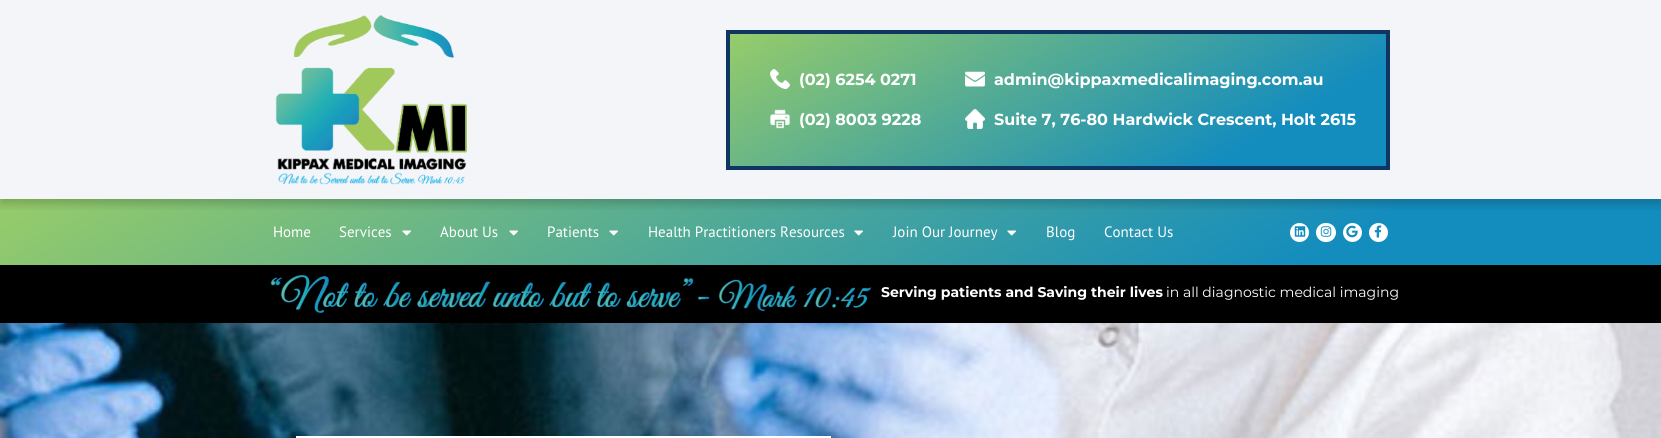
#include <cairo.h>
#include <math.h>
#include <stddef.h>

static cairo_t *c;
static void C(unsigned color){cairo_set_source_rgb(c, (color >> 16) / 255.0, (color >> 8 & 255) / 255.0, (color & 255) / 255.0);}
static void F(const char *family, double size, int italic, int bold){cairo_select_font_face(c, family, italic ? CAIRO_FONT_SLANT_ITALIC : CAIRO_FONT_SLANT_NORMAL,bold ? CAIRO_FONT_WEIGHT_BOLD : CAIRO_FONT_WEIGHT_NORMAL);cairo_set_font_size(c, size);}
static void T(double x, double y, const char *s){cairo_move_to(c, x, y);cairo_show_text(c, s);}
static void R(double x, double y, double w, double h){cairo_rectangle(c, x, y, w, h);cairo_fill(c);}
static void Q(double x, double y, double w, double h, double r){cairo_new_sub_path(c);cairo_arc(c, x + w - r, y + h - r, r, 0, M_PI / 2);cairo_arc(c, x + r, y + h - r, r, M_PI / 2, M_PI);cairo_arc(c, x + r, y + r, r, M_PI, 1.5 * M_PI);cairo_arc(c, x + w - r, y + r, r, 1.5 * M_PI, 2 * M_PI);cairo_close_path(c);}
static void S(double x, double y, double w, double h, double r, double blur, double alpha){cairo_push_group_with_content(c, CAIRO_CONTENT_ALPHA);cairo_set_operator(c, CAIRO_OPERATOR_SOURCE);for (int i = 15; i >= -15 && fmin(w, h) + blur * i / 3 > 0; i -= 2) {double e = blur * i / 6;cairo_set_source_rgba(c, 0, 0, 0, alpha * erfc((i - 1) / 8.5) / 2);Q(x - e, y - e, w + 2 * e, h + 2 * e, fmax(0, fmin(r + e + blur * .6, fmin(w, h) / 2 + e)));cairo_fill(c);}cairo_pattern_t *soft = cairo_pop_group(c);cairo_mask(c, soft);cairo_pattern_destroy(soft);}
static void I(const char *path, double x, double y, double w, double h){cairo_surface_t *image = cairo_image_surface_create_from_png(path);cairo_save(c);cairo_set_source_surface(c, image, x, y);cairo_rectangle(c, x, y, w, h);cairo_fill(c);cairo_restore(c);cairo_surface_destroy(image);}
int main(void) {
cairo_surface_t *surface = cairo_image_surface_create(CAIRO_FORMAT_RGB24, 1661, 438);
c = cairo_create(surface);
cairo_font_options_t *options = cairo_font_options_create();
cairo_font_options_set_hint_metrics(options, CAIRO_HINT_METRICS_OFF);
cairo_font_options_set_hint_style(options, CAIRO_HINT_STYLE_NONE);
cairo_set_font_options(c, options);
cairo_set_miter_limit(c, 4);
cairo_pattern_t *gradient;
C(0xf4f5f9);
cairo_paint(c);
C(0x000000);
R(0,265,1661,58);
I("15.png",270,275,601,38);
C(0x000000);
S(0,208,1661,66,0,5,.1);
gradient = cairo_pattern_create_linear(609,-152,1052,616);
cairo_pattern_add_color_stop_rgba(gradient,0,0.592,0.8,0.412,1);
cairo_pattern_add_color_stop_rgba(gradient,.8,0.075,0.549,0.745,1);
cairo_set_source(c,gradient);
cairo_pattern_destroy(gradient);
R(0,199,1661,66);
cairo_save(c);
cairo_rectangle(c,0,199,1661,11);
cairo_clip(c);
C(0x000000);
S(0,5,1661,199,0,5,.2);
cairo_restore(c);
I("1.png",275,15,192,170);
gradient = cairo_pattern_create_linear(947,-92,1169,292);
cairo_pattern_add_color_stop_rgba(gradient,0,0.592,0.8,0.412,1);
cairo_pattern_add_color_stop_rgba(gradient,.8,0.075,0.549,0.745,1);
cairo_set_source(c,gradient);
cairo_pattern_destroy(gradient);
R(730,34,656,132);
cairo_rectangle(c,728,32,660,136);
C(0x0f3562);
cairo_set_line_width(c,4);
cairo_stroke(c);
I("2.png",770,69,20,20);
F("Montserrat",16,0,1);
C(0xffffff);
T(799,85,"(02) 6254 0271");
I("3.png",770,109,20,20);
T(799,125,"(02) 8003 9228");
I("4.png",965,71,20,16);
T(994,85,"admin@kippaxmedicalimaging.com.au");
I("5.png",965,109,20,20);
T(994,125,"Suite 7, 76-80 Hardwick Crescent, Holt 2615");
F("PT Sans",15,0,0);
T(273,237,"Home");
T(339,237,"Services");
I("6.png",402,230,9,6);
T(440,237,"About Us");
I("7.png",509,230,9,6);
T(547,237,"Patients");
I("8.png",609,230,9,6);
T(648,237,"Health Practitioners Resources");
I("9.png",854,230,9,6);
T(893,237,"Join Our Journey");
I("10.png",1007,230,9,6);
T(1046,237,"Blog");
T(1104,237,"Contact Us");
cairo_new_path(c);
cairo_arc(c,1299.5,232.5,9.5,0,2 * M_PI);
cairo_fill(c);
I("11.png",1294,226,12,11);
Q(1316,223,20,19,9.5);
cairo_fill(c);
I("12.png",1320,226,12,11);
cairo_arc(c,1352.5,232.5,9.5,0,2 * M_PI);
cairo_fill(c);
I("13.png",1346,225,12,13);
cairo_arc(c,1378.5,232.5,9.5,0,2 * M_PI);
cairo_fill(c);
I("14.png",1374,225,8,13);
F("Montserrat",14,0,1);
T(881,297,"Serving patients and Saving their lives");
F("Montserrat",14,0,0);
T(1166,297,"in all diagnostic medical imaging");
I("16.png",0,323,1661,115);
R(296,436,535,2);
cairo_surface_write_to_png(surface, "o.png");
cairo_font_options_destroy(options);
cairo_destroy(c);
cairo_surface_destroy(surface);
return 0;
}
